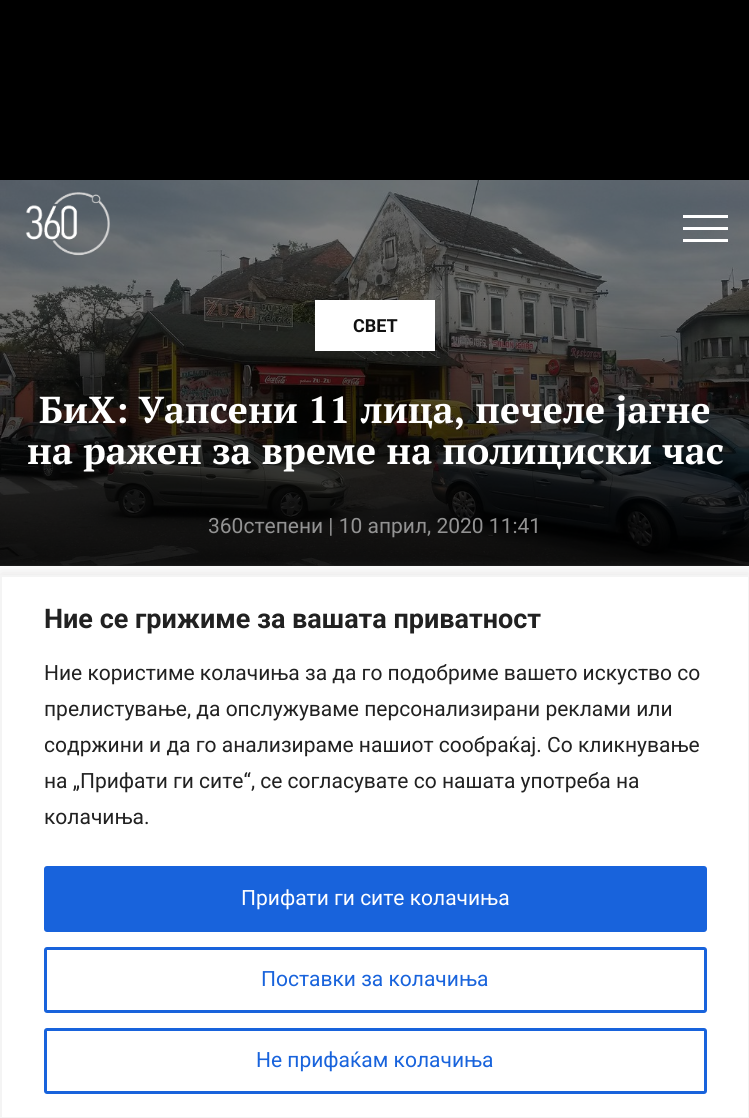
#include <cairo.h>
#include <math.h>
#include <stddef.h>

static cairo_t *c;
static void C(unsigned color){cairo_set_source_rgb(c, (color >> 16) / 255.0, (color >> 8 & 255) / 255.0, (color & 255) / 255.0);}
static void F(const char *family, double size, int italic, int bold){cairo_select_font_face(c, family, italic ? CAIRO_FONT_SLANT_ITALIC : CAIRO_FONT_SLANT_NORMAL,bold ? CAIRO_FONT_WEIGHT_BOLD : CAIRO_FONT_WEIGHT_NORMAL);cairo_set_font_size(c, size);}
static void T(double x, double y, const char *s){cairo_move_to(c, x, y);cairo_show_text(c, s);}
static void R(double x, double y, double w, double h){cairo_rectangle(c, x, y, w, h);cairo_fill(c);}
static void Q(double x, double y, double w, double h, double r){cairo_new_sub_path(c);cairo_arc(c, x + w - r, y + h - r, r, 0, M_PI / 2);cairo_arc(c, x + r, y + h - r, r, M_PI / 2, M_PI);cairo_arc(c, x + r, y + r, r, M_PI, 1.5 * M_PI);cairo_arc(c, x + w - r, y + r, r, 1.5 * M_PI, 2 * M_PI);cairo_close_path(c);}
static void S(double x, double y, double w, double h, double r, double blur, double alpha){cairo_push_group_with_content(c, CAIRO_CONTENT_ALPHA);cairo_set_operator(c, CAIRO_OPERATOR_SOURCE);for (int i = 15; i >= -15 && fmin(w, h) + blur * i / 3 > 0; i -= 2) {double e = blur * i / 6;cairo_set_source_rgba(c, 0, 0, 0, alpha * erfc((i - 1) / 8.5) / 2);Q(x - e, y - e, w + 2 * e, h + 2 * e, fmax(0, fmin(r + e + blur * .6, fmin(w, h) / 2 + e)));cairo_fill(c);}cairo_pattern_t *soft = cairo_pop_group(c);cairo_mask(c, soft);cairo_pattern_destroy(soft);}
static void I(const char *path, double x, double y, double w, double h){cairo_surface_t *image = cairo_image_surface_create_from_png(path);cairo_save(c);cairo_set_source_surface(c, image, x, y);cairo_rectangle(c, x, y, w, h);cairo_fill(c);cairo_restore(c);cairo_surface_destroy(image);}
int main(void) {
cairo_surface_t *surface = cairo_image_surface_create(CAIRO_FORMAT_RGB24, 749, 1118);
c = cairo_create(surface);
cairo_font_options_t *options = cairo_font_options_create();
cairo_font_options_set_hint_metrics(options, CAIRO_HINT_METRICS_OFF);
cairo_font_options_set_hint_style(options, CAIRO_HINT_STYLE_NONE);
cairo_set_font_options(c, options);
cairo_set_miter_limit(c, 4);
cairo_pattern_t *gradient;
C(0xffffff);
cairo_paint(c);
C(0x000000);
R(0,0,749,180);
I("2.png",0,180,749,386);
gradient = cairo_pattern_create_linear(375,180,375,566);
cairo_pattern_add_color_stop_rgba(gradient,.25,0,0,0,.5);
cairo_pattern_add_color_stop_rgba(gradient,1,0,0,0,.9);
cairo_set_source(c,gradient);
cairo_pattern_destroy(gradient);
R(0,180,749,386);
I("1.png",25,192,85,64);
C(0xffffff);
R(683,215,45,3);
R(683,227,45,3);
R(683,239,45,3);
R(315,300,120,51);
F("Roboto",18,0,1);
C(0x111111);
T(353,332,"СВЕТ");
F("PT Serif",37.5,0,1);
C(0xffffff);
T(39,423,"БиХ: Уапсени 11 лица, печеле јагне");
T(27,464,"на ражен за време на полициски час");
F("Roboto",21,0,0);
C(0x939393);
T(208,533,"360степени | 10 април, 2020 11:41");
C(0xacabab);
S(0,573,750,545,0,7.5,.3);
C(0xffffff);
cairo_rectangle(c,1,576,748,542);
cairo_fill_preserve(c);
C(0xf4f4f4);
cairo_stroke(c);
F("Roboto",27,0,1);
C(0x212121);
T(44,628,"Ние се грижиме за вашата приватност");
F("Roboto",21,0,0);
T(44,680,"Ние користиме колачиња за да го подобриме вашето искуство со");
T(44,716,"прелистување, да опслужуваме персонализирани реклами или");
T(44,752,"содржини и да го анализираме нашиот сообраќај. Со кликнување");
T(44,788,"на „Прифати ги сите“, се согласувате со нашата употреба на");
T(44,824,"колачиња.");
C(0x1863dc);
Q(45.5,867.5,660,63,1.5);
cairo_fill_preserve(c);
cairo_set_line_width(c,3);
cairo_stroke(c);
C(0xffffff);
T(241,905,"Прифати ги сите колачиња");
Q(45.5,948.5,660,63,1.5);
C(0x1863dc);
cairo_stroke(c);
T(261,986,"Поставки за колачиња");
Q(45.5,1029.5,660,63,1.5);
cairo_stroke(c);
T(256,1067,"Не прифаќам колачиња");
cairo_surface_write_to_png(surface, "o.png");
cairo_font_options_destroy(options);
cairo_destroy(c);
cairo_surface_destroy(surface);
return 0;
}
